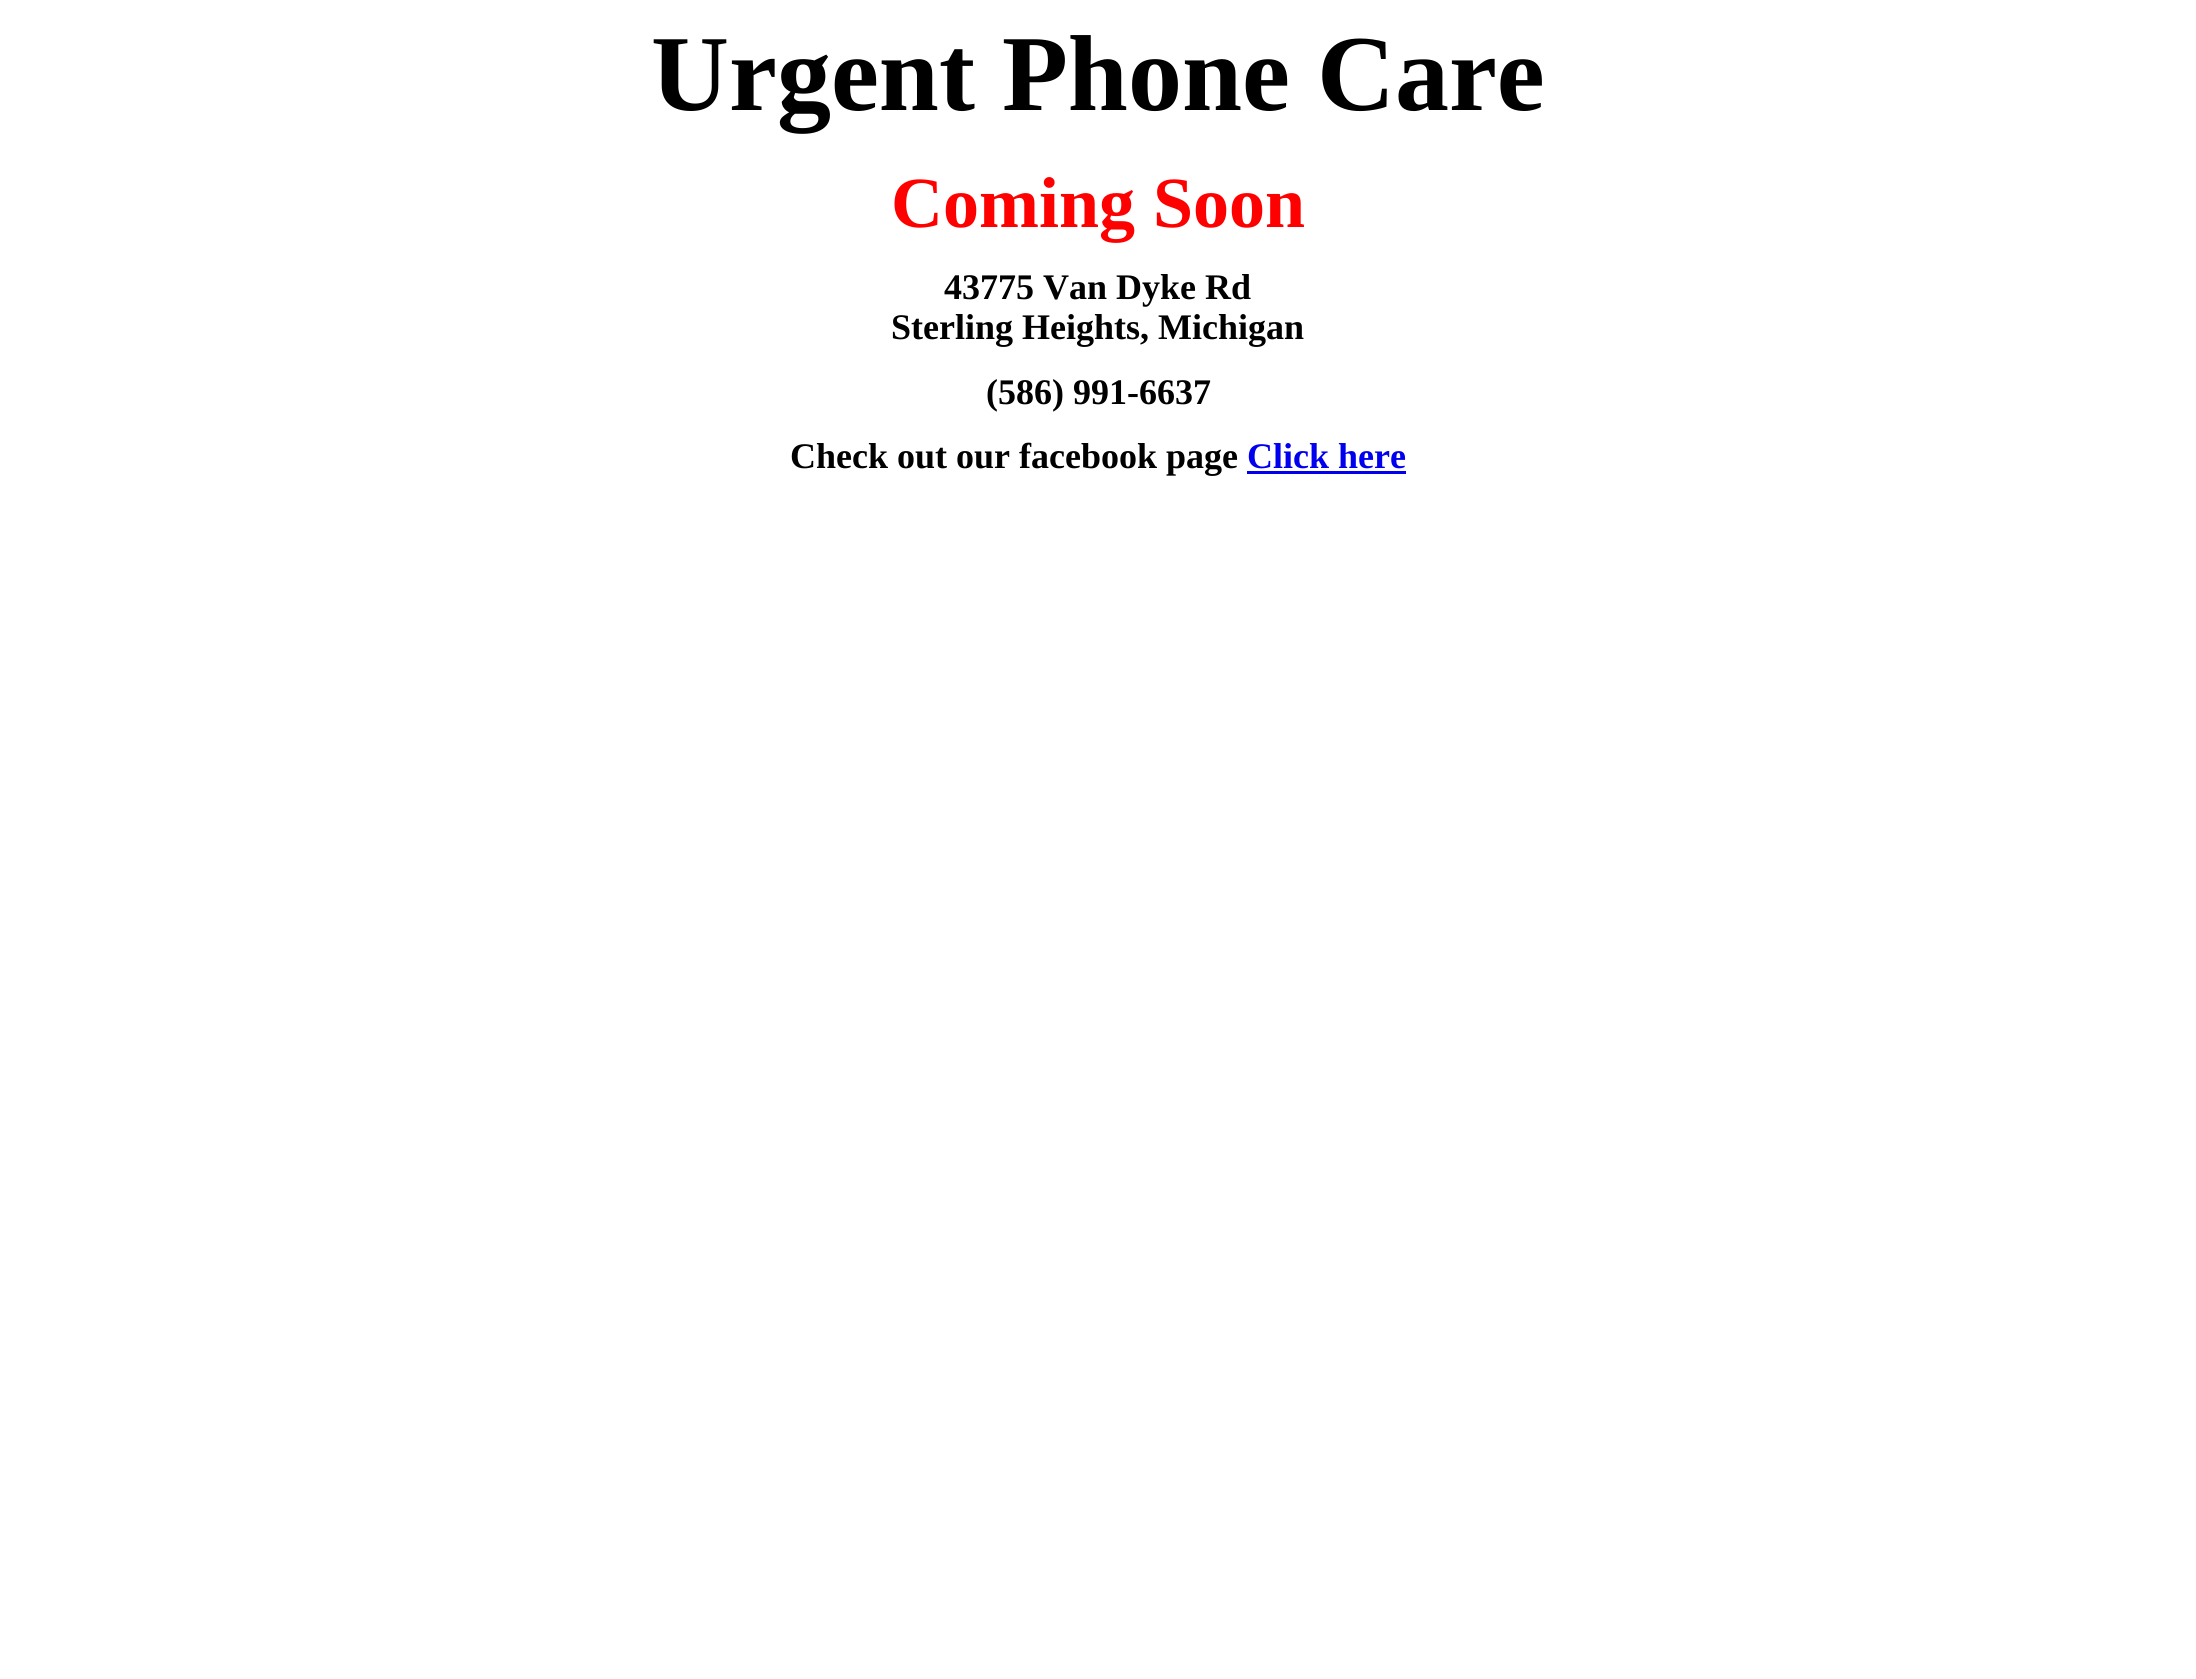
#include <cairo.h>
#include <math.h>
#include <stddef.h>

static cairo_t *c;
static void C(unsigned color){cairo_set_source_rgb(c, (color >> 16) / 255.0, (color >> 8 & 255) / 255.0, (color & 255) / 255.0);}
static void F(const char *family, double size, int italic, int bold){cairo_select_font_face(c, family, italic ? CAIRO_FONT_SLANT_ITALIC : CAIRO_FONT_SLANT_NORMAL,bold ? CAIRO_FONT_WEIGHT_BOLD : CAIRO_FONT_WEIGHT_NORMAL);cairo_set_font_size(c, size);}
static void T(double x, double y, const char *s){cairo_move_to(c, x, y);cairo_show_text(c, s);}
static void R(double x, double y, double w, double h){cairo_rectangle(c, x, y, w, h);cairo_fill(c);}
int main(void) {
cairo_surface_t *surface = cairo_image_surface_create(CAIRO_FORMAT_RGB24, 2196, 1679);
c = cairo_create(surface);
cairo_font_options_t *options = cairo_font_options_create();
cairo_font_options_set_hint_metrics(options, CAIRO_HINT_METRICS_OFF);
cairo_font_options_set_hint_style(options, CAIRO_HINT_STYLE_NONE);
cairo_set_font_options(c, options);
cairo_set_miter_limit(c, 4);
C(0xffffff);
cairo_paint(c);
F("Liberation Serif",108,0,1);
C(0x000000);
T(651,110,"Urgent Phone Care");
F("Liberation Serif",72,0,1);
C(0xff0000);
T(891,227,"Coming Soon");
F("Liberation Serif",36,0,1);
C(0x000000);
T(944,299,"43775 Van Dyke Rd");
T(891,339,"Sterling Heights, Michigan");
T(986,404,"(586) 991-6637");
T(790,468,"Check out our facebook page");
C(0x0000ee);
T(1247,468,"Click here");
R(1247,471,159,3);
cairo_surface_write_to_png(surface, "o.png");
cairo_font_options_destroy(options);
cairo_destroy(c);
cairo_surface_destroy(surface);
return 0;
}
